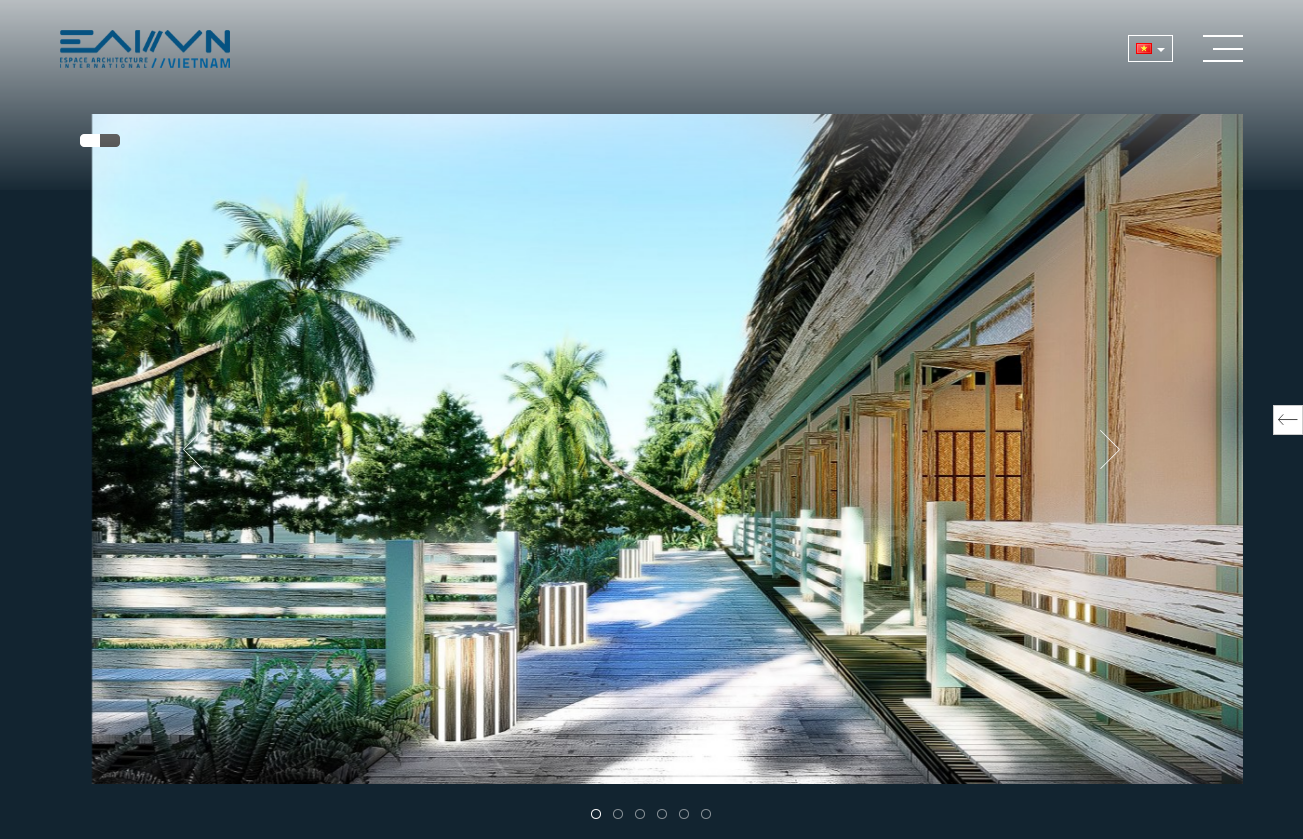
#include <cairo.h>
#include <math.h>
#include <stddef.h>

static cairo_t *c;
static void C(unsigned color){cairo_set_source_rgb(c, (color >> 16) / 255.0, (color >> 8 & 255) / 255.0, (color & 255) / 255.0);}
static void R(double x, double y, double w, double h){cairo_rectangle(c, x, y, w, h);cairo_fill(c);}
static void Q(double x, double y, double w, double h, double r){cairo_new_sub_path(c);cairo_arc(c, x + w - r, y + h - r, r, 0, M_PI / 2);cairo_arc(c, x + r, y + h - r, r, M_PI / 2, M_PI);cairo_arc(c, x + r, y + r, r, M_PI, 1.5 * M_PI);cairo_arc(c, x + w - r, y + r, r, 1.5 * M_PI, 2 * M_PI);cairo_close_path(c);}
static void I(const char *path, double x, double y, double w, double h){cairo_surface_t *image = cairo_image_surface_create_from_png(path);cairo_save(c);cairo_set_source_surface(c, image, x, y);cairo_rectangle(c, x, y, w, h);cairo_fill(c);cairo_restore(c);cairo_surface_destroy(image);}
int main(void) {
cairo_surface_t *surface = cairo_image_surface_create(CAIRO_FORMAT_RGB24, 1303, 839);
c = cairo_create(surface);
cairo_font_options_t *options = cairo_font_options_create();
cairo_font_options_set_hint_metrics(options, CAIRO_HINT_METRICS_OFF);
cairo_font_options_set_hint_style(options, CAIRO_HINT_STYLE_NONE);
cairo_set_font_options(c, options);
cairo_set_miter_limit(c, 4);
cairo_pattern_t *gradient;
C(0x122430);
cairo_paint(c);
I("3.png",91,114,1152,670);
C(0x333333);
Q(80,134,40,13,4);
cairo_fill(c);
C(0xffffff);
cairo_new_path(c);
cairo_move_to(c,84,134);
cairo_line_to(c,100,134);
cairo_line_to(c,100,147);
cairo_line_to(c,84,147);
cairo_curve_to(c,82,147,80,145,80,143);
cairo_line_to(c,80,138);
cairo_curve_to(c,80,136,82,134,84,134);
cairo_close_path(c);
cairo_fill(c);
gradient = cairo_pattern_create_linear(652,0,652,196);
cairo_pattern_add_color_stop_rgba(gradient,0,1,1,1,.7);
cairo_pattern_add_color_stop_rgba(gradient,1,1,1,1,0);
cairo_set_source(c,gradient);
cairo_pattern_destroy(gradient);
R(0,0,1303,190);
I("1.png",60,30,170,38);
cairo_rectangle(c,1128.5,35.5,44,26);
C(0xffffff);
cairo_set_line_width(c,1);
cairo_stroke(c);
I("2.png",1136,43,16,11);
cairo_new_path(c);
cairo_move_to(c,1157,48);
cairo_line_to(c,1165,48);
cairo_line_to(c,1161,52);
cairo_close_path(c);
cairo_fill(c);
R(1203,35,40,2);
R(1213,48,30,2);
R(1203,60,40,2);
I("4.png",183,430,20,39);
I("5.png",1100,430,20,39);
cairo_arc(c,596,814,4.5,0,2 * M_PI);
cairo_stroke(c);
cairo_arc(c,618,814,4.5,0,2 * M_PI);
C(0x899298);
cairo_stroke(c);
cairo_arc(c,640,814,4.5,0,2 * M_PI);
cairo_stroke(c);
cairo_arc(c,662,814,4.5,0,2 * M_PI);
cairo_stroke(c);
cairo_arc(c,684,814,4.5,0,2 * M_PI);
cairo_stroke(c);
cairo_arc(c,706,814,4.5,0,2 * M_PI);
cairo_stroke(c);
C(0xffffff);
cairo_rectangle(c,1273.5,405.5,29,29);
cairo_fill_preserve(c);
C(0xcccccc);
cairo_stroke(c);
I("6.png",1278,414,20,11);
cairo_surface_write_to_png(surface, "o.png");
cairo_font_options_destroy(options);
cairo_destroy(c);
cairo_surface_destroy(surface);
return 0;
}
